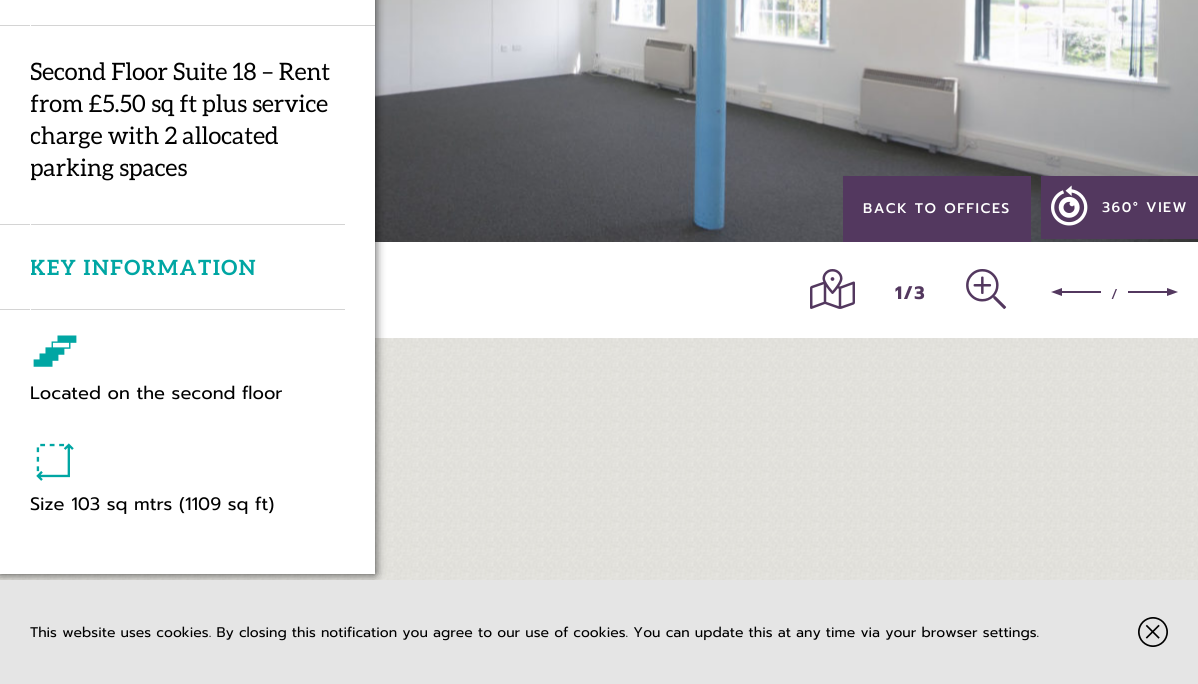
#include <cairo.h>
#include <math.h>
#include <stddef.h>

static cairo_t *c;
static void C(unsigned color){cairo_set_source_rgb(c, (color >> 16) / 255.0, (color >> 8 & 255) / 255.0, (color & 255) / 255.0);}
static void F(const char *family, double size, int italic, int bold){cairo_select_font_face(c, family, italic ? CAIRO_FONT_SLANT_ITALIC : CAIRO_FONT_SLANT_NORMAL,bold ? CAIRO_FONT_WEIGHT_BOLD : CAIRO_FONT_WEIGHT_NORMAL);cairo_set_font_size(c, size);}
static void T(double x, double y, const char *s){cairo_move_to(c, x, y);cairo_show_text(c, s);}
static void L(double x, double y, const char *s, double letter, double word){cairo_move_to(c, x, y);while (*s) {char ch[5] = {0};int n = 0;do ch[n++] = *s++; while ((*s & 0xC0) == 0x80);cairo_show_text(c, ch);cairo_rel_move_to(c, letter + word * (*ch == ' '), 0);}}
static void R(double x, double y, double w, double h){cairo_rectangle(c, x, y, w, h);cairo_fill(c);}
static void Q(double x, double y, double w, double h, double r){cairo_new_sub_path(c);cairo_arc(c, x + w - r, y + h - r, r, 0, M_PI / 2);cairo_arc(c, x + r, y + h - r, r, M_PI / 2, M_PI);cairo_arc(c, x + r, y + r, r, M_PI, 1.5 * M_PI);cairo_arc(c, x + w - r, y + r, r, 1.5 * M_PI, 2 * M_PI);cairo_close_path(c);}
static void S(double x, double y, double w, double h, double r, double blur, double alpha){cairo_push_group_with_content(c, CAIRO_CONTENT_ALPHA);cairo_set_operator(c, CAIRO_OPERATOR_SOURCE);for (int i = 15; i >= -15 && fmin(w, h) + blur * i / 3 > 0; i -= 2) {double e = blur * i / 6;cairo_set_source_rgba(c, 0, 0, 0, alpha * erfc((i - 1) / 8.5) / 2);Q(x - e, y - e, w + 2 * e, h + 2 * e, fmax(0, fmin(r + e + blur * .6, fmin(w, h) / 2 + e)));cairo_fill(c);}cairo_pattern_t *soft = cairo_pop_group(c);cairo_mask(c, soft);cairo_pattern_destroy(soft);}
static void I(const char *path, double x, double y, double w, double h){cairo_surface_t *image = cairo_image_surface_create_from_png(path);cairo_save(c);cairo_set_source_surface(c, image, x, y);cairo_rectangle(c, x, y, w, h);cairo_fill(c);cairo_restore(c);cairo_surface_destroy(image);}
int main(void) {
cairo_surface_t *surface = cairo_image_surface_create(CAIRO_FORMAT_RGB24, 1198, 684);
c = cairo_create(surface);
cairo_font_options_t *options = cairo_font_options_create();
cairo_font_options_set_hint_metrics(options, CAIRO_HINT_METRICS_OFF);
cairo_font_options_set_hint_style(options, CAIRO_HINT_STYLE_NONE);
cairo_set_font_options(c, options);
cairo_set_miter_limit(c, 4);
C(0xffffff);
cairo_paint(c);
I("3.png",375,0,823,242);
I("7.png",0,338,1198,242);
C(0x000000);
S(0,-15,375,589,0,5,.75);
C(0xffffff);
R(0,0,375,574);
C(0xd4d4d4);
R(0,25,375,1);
F("Aleo",24,0,0);
C(0x000000);
T(30,80,"Second Floor Suite 18 – Rent");
T(30,112,"from £5.50 sq ft plus service");
T(30,144,"charge with 2 allocated");
T(30,176,"parking spaces");
C(0xd4d4d4);
R(0,224,345,1);
R(0,309,345,1);
F("aleo",21,0,1);
C(0x00a6a3);
L(30,275,"KEY INFORMATION",1.5,0);
I("1.png",33,335,44,32);
F("Prompt",18,0,0);
C(0x000000);
T(30,399,"Located on the second floor");
I("2.png",36,443,38,38);
T(30,510,"Size 103 sq mtrs (1109 sq ft)");
C(0xffffff);
R(30,25,1,285);
C(0x53385f);
R(843,176,188,66);
F("Prompt Medium",14,0,0);
C(0xffffff);
L(863,213,"BACK TO OFFICES",1.5,0);
C(0x53385f);
R(1041,176,157,63);
I("4.png",1051,185,37,41);
C(0xffffff);
L(1102,212,"360° VIEW",1.5,0);
I("5.png",810,269,45,40);
F("Prompt",18,0,1);
C(0x53385f);
L(895,299,"1/3",1.5,0);
I("6.png",966,269,41,40);
cairo_new_path(c);
cairo_move_to(c,1056,291);
cairo_line_to(c,1101,291);
cairo_line_to(c,1101,293);
cairo_line_to(c,1056,293);
cairo_close_path(c);
cairo_move_to(c,1062,296);
cairo_line_to(c,1051,292);
cairo_line_to(c,1062,288);
cairo_close_path(c);
cairo_fill(c);
F("Prompt",14,0,0);
T(1111,299,"/");
cairo_new_path(c);
cairo_move_to(c,1173,293);
cairo_line_to(c,1128,293);
cairo_line_to(c,1128,291);
cairo_line_to(c,1173,291);
cairo_close_path(c);
cairo_move_to(c,1167,288);
cairo_line_to(c,1178,292);
cairo_line_to(c,1167,296);
cairo_close_path(c);
cairo_fill(c);
C(0xe5e5e5);
R(0,580,1198,104);
C(0x000000);
T(30,637,"This website uses cookies. By closing this notification you agree to our use of cookies. You can update this at any time via your browser settings.");
I("8.png",1138,617,30,30);
cairo_surface_write_to_png(surface, "o.png");
cairo_font_options_destroy(options);
cairo_destroy(c);
cairo_surface_destroy(surface);
return 0;
}
